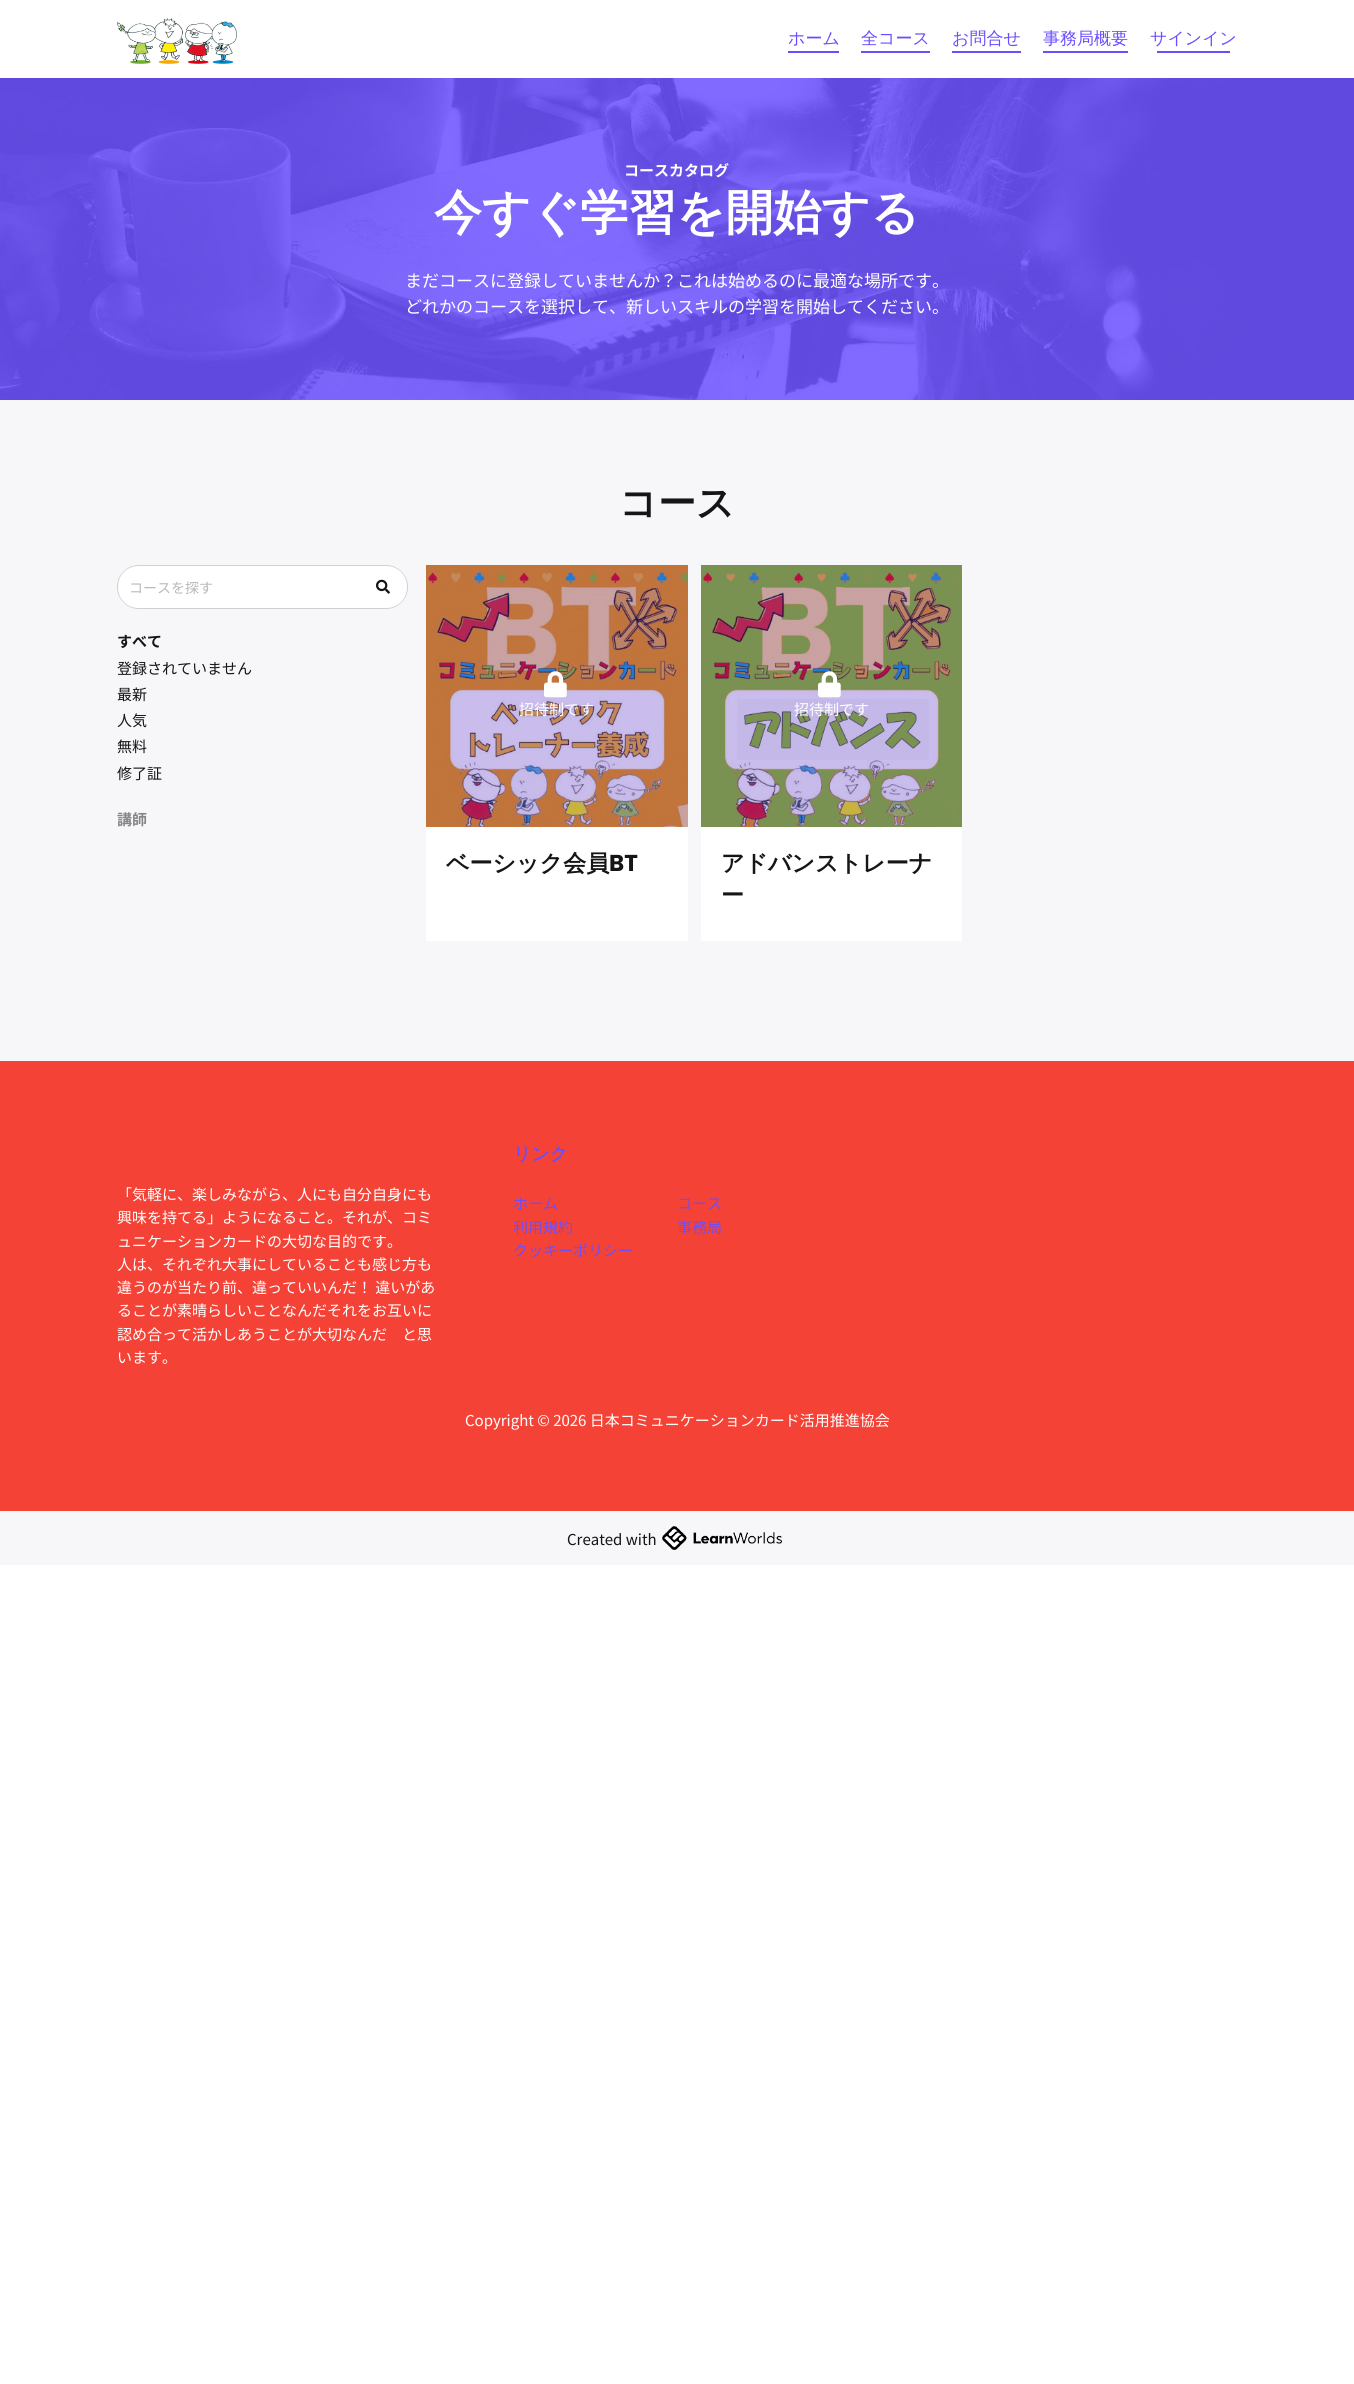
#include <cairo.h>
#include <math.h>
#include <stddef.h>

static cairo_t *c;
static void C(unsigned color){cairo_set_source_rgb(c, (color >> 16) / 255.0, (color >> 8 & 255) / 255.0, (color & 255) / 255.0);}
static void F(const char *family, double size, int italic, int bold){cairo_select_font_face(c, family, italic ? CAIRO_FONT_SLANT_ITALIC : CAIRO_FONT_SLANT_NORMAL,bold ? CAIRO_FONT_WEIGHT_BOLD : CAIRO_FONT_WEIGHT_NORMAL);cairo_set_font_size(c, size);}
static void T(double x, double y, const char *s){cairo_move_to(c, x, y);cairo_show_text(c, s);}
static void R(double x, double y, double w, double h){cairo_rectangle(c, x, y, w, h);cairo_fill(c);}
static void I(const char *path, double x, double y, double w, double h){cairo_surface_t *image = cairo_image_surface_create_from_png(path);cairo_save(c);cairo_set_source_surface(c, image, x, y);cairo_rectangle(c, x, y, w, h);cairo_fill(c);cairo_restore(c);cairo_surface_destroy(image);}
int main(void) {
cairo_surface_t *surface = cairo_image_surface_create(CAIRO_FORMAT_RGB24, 1354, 2384);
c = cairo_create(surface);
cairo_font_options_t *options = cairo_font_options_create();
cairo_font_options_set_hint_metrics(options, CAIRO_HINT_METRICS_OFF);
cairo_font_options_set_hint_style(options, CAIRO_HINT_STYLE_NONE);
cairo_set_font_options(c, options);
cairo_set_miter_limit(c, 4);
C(0xffffff);
cairo_paint(c);
I("1.png",117,14,120,50);
C(0x694eff);
R(788,51,51,2);
F("WenQuanYi Zen Hei Medium",17,0,0);
T(788,44,"ホーム");
R(861,51,69,2);
T(861,44,"全コース");
R(952,51,69,2);
T(952,44,"お問合せ");
R(1043,51,85,2);
T(1043,44,"事務局概要");
R(1157,51,73,2);
T(1150,44,"サインイン");
I("2.png",0,78,1354,322);
F("Noto Sans JP",15,0,1);
C(0xffffff);
T(624,176,"コースカタログ");
F("WenQuanYi Zen Hei",48,0,1);
T(434,229,"今すぐ学習を開始する");
F("Noto Sans JP",17,0,0);
T(405,287,"まだコースに登録していませんか？これは始めるのに最適な場所です。");
T(405,313,"どれかのコースを選択して、新しいスキルの学習を開始してください。");
C(0xf7f7f9);
R(0,400,1354,661);
C(0xc4b8e9);
R(737,698,192,63);
F("WenQuanYi Zen Hei",38,0,1);
C(0x151515);
T(619,516,"コース");
C(0xffffff);
cairo_new_path(c);
cairo_move_to(c,139,565);
cairo_line_to(c,360,565);
cairo_line_to(c,360,609);
cairo_line_to(c,139,609);
cairo_curve_to(c,127,609,117,599,117,587);
cairo_curve_to(c,117,575,127,565,139,565);
cairo_close_path(c);
cairo_fill(c);
cairo_set_source_rgba(c,0.082,0.082,0.082,0.2);
cairo_set_fill_rule(c,CAIRO_FILL_RULE_EVEN_ODD);
cairo_new_path(c);
cairo_move_to(c,139,565);
cairo_line_to(c,360,565);
cairo_line_to(c,360,609);
cairo_line_to(c,139,609);
cairo_curve_to(c,127,609,117,599,117,587);
cairo_curve_to(c,117,575,127,565,139,565);
cairo_close_path(c);
cairo_move_to(c,139,566);
cairo_line_to(c,360,566);
cairo_line_to(c,360,608);
cairo_line_to(c,139,608);
cairo_curve_to(c,127,608,118,599,118,587);
cairo_curve_to(c,118,575,127,566,139,566);
cairo_close_path(c);
cairo_fill(c);
F("Noto Sans JP",14,0,0);
C(0xb9b9b9);
T(129,593,"コースを探す");
C(0xffffff);
cairo_new_path(c);
cairo_move_to(c,360,565);
cairo_line_to(c,386,565);
cairo_curve_to(c,398,565,408,575,408,587);
cairo_curve_to(c,408,599,398,609,386,609);
cairo_line_to(c,360,609);
cairo_close_path(c);
cairo_fill(c);
cairo_set_source_rgba(c,0.082,0.082,0.082,0.2);
cairo_new_path(c);
cairo_move_to(c,360,565);
cairo_line_to(c,386,565);
cairo_curve_to(c,398,565,408,575,408,587);
cairo_curve_to(c,408,599,398,609,386,609);
cairo_line_to(c,360,609);
cairo_close_path(c);
cairo_move_to(c,360,566);
cairo_line_to(c,386,566);
cairo_curve_to(c,398,566,407,575,407,587);
cairo_curve_to(c,407,599,398,608,386,608);
cairo_line_to(c,360,608);
cairo_close_path(c);
cairo_fill(c);
I("3.png",376,579,14,15);
F("Noto Sans JP",15,0,1);
C(0x151515);
T(117,647,"すべて");
F("Noto Sans JP",15,0,0);
T(117,674,"登録されていません");
T(117,700,"最新");
T(117,726,"人気");
T(117,752,"無料");
T(117,779,"修了証");
F("Noto Sans JP",15,0,1);
C(0x868687);
T(117,825,"講師");
I("4.png",426,565,262,262);
I("5.png",544,671,23,27);
F("Noto Sans JP",15,0,0);
C(0xffffff);
T(519,715,"招待制です");
R(426,827,262,114);
F("WenQuanYi Zen Hei",23,0,1);
C(0x151515);
T(446,871,"ベーシック会員");
F("Poppins",23,0,1);
T(609,871,"BT");
I("6.png",701,565,261,262);
I("7.png",818,671,23,27);
F("Noto Sans JP",15,0,0);
C(0xffffff);
T(794,715,"招待制です");
R(701,827,261,114);
F("WenQuanYi Zen Hei",23,0,1);
C(0x151515);
T(721,871,"アドバンストレーナ");
T(721,903,"ー");
C(0xf44336);
R(0,1061,1354,450);
F("Noto Sans JP",15,0,0);
C(0xffffff);
T(117,1200,"「気軽に、楽しみながら、人にも自分自身にも");
T(117,1223,"興味を持てる」ようになること。それが、コミ");
T(117,1247,"ュニケーションカードの大切な目的です。");
T(117,1270,"人は、それぞれ大事にしていることも感じ方も");
T(117,1293,"違うのが当たり前、違っていいんだ！ 違いがあ");
T(117,1316,"ることが素晴らしいことなんだそれをお互いに");
T(117,1340,"認め合って活かしあうことが大切なんだ　と思");
T(117,1363,"います。");
F("WenQuanYi Zen Hei",18,0,1);
C(0x694eff);
T(513,1160,"リンク");
F("Noto Sans JP",15,0,0);
T(513,1209,"ホーム");
T(677,1209,"コース");
T(513,1233,"利用規約");
T(677,1233,"事務局");
T(513,1256,"クッキーポリシー");
C(0xffffff);
T(465,1426,"Copyright © 2026 日本コミュニケーションカード活用推進協会");
C(0xf7f7f9);
R(0,1511,1354,54);
C(0x151515);
T(567,1545,"Created with");
I("8.png",662,1526,120,24);
cairo_surface_write_to_png(surface, "o.png");
cairo_font_options_destroy(options);
cairo_destroy(c);
cairo_surface_destroy(surface);
return 0;
}
